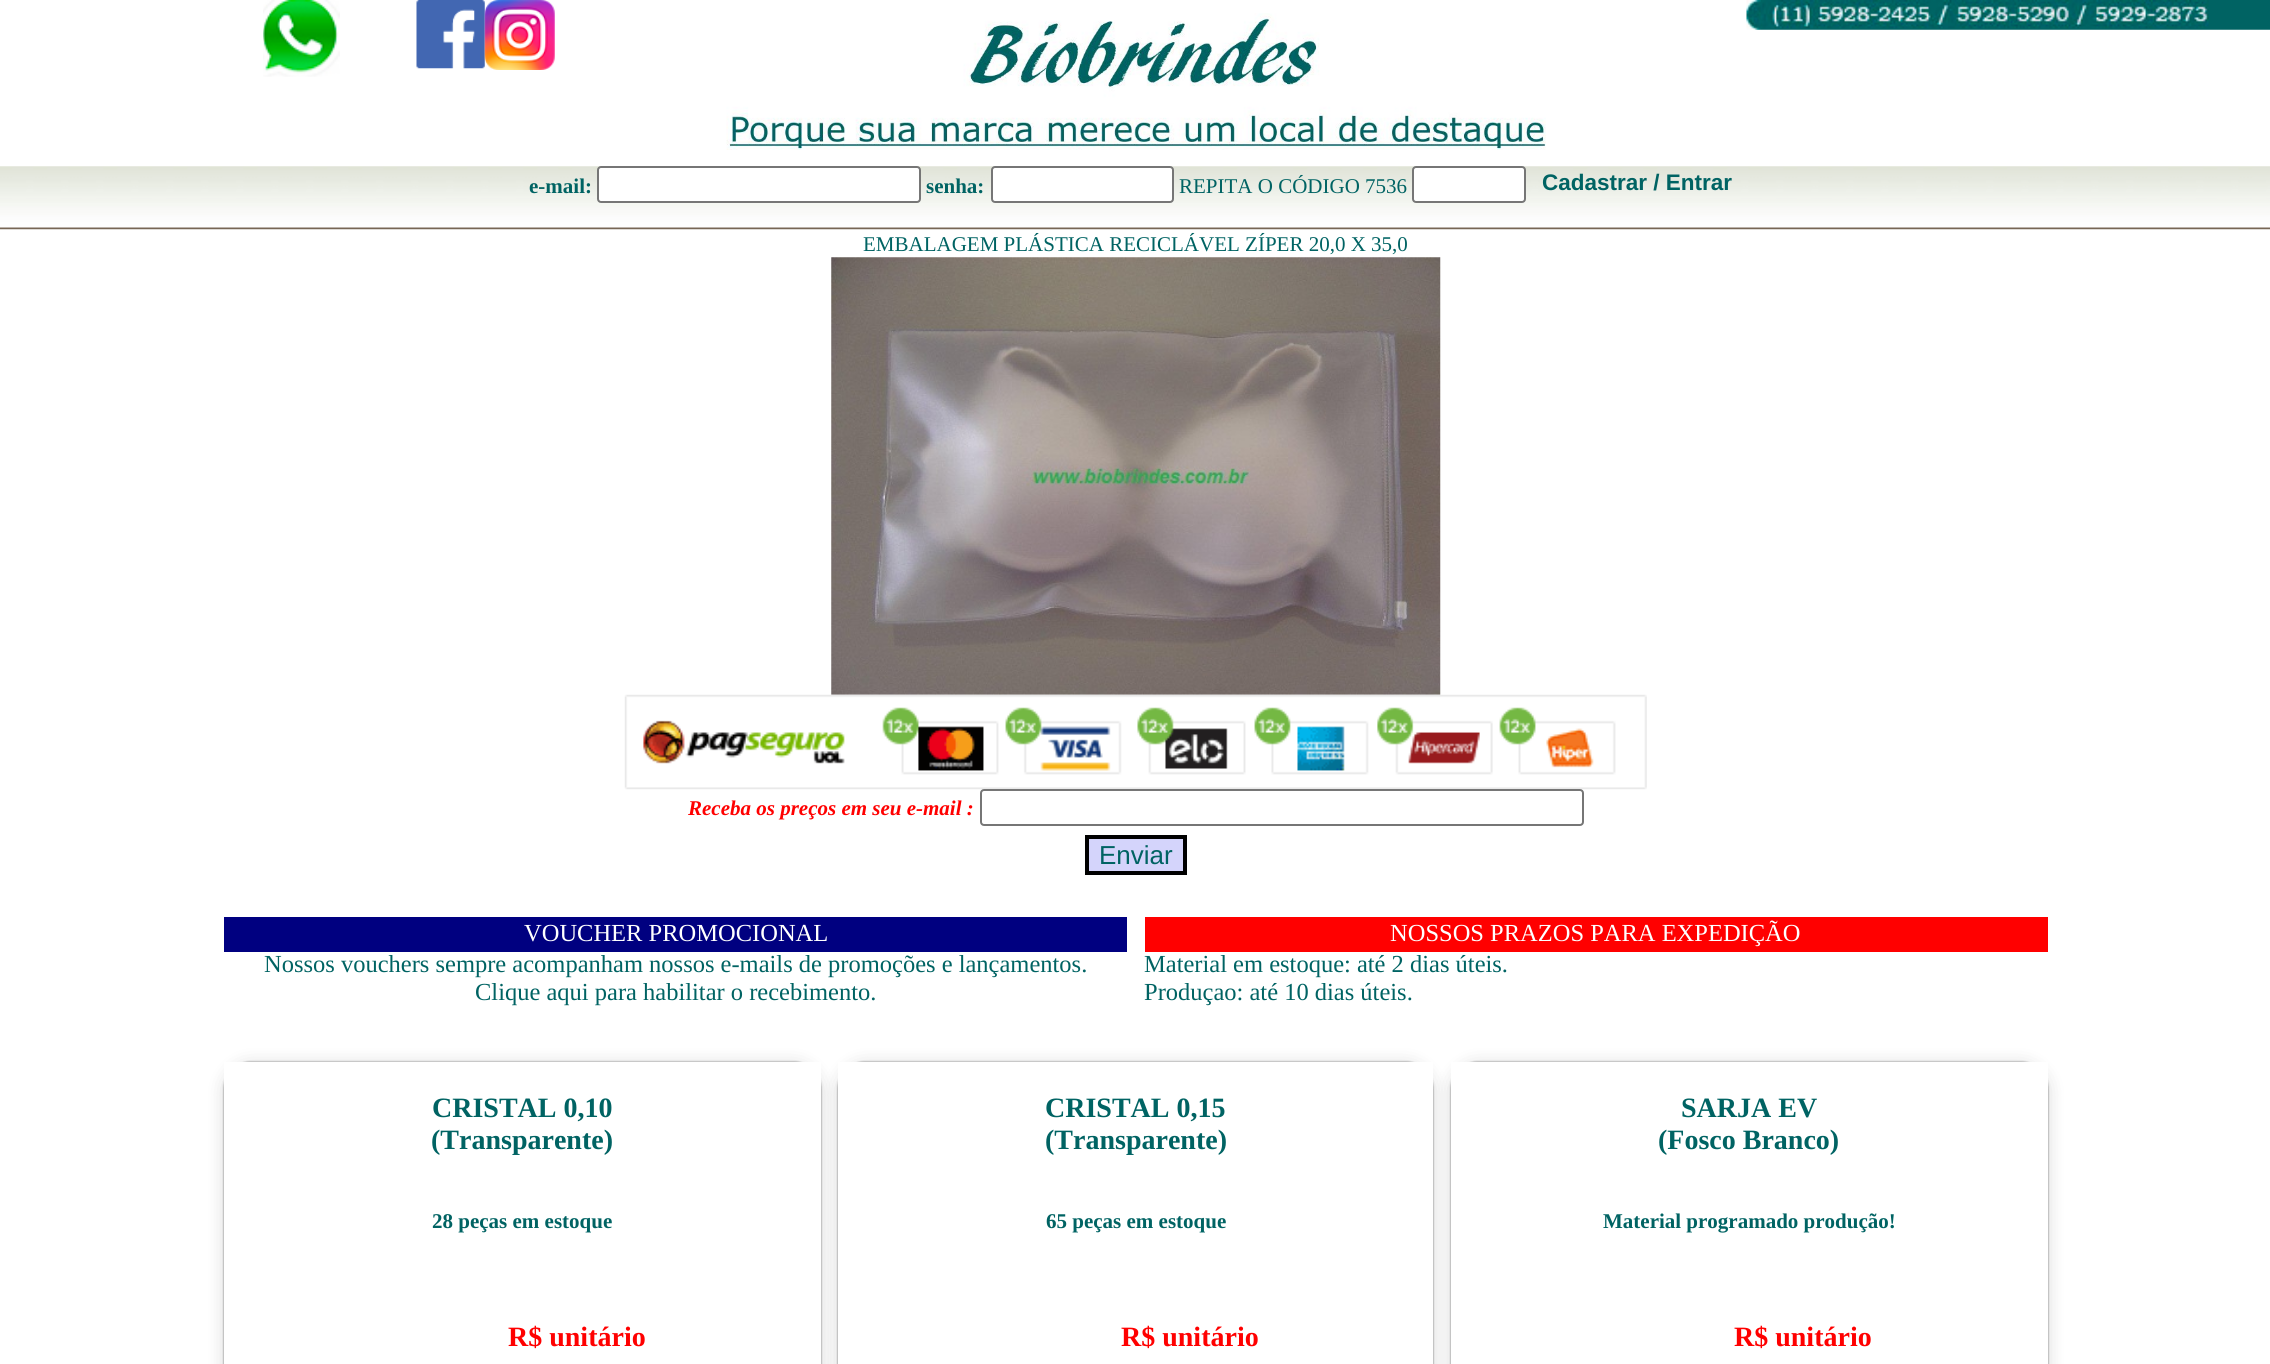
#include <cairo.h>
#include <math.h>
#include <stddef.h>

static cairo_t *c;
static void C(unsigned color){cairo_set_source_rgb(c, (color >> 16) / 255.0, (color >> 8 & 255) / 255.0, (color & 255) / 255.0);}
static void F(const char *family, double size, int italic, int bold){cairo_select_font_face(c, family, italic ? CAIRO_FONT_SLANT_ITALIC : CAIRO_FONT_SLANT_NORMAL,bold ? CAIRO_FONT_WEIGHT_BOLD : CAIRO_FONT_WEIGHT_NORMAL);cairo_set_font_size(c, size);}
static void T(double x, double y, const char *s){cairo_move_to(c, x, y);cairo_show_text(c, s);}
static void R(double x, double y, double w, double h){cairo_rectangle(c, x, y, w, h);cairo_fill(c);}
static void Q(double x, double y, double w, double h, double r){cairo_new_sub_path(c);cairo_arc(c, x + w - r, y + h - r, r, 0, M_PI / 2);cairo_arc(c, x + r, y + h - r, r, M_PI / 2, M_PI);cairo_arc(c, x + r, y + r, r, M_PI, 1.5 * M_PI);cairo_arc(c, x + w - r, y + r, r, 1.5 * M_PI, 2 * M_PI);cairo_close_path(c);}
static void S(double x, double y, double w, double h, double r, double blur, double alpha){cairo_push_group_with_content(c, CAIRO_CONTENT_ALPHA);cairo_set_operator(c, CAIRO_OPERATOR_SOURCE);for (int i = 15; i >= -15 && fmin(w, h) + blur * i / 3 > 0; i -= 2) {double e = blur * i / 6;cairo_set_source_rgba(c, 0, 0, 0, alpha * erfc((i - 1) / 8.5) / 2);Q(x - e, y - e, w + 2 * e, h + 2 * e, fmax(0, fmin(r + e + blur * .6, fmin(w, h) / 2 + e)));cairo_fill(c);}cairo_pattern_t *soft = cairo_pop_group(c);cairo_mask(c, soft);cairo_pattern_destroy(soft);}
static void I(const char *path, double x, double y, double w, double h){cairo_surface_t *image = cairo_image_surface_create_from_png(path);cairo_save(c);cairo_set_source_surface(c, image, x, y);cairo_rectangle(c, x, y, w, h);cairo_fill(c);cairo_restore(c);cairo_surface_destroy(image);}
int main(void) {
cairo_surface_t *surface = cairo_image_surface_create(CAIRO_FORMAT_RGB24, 2270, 1364);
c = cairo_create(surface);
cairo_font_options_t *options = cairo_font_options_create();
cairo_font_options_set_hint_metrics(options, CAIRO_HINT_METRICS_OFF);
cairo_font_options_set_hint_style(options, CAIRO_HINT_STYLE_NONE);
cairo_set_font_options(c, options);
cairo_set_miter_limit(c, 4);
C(0xffffff);
cairo_paint(c);
I("1.png",263,0,77,77);
I("2.png",416,0,69,69);
I("3.png",484,0,71,70);
I("4.png",726,13,820,137);
I("5.png",1746,0,524,30);
I("6.png",0,166,2270,64);
F("Liberation Serif",21,0,1);
C(0x006363);
T(529,193,"e-mail:");
C(0xffffff);
Q(598,167,322,35,3);
cairo_fill_preserve(c);
C(0x767676);
cairo_stroke(c);
C(0x006363);
T(926,193,"senha:");
C(0xffffff);
Q(992,167,181,35,3);
cairo_fill_preserve(c);
C(0x767676);
cairo_stroke(c);
F("Liberation Serif",21,0,0);
C(0x006363);
T(1179,193,"REPITA O CÓDIGO 7536");
C(0xffffff);
Q(1413,167,112,35,3);
cairo_fill_preserve(c);
C(0x767676);
cairo_stroke(c);
F("Liberation Sans",22.5,0,1);
C(0x006363);
T(1542,190,"Cadastrar / Entrar");
F("Liberation Serif",21,0,0);
T(863,251,"EMBALAGEM PLÁSTICA RECICLÁVEL ZÍPER 20,0 X 35,0");
I("7.png",831,257,610,438);
I("8.png",624,694,1023,96);
F("Liberation Serif",21,1,1);
C(0xff0000);
T(688,815,"Receba os preços em seu e-mail :");
C(0xffffff);
Q(981,790,602,35,3);
cairo_fill_preserve(c);
C(0x767676);
cairo_stroke(c);
C(0xd4d4fb);
cairo_rectangle(c,1087,837,98,36);
cairo_fill_preserve(c);
C(0x000000);
cairo_set_line_width(c,4);
cairo_stroke(c);
F("Liberation Sans",26,0,0);
C(0x006363);
T(1099,864,"Enviar");
C(0x000080);
R(224,917,903,35);
F("Liberation Serif",24.5,0,0);
C(0xffffff);
T(524,941,"VOUCHER PROMOCIONAL");
C(0x006363);
T(264,972,"Nossos vouchers sempre acompanham nossos e-mails de promoções e lançamentos.");
T(475,1000,"Clique aqui para habilitar o recebimento.");
C(0xff0000);
R(1145,917,903,35);
C(0xffffff);
T(1390,941,"NOSSOS PRAZOS PARA EXPEDIÇÃO");
C(0x006363);
T(1144,972,"Material em estoque: até 2 dias úteis.");
T(1144,1000,"Produçao: até 10 dias úteis.");
cairo_save(c);
cairo_set_fill_rule(c,CAIRO_FILL_RULE_EVEN_ODD);
cairo_new_path(c);
cairo_move_to(c,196,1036);
cairo_line_to(c,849,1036);
cairo_line_to(c,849,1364);
cairo_line_to(c,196,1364);
cairo_close_path(c);
cairo_move_to(c,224,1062);
cairo_line_to(c,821,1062);
cairo_line_to(c,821,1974);
cairo_curve_to(c,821,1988.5,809.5,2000,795,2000);
cairo_line_to(c,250,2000);
cairo_curve_to(c,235.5,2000,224,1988.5,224,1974);
cairo_close_path(c);
cairo_clip(c);
C(0x000000);
S(224,1064,597,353,26,9,.15);
cairo_restore(c);
cairo_save(c);
cairo_set_fill_rule(c,CAIRO_FILL_RULE_EVEN_ODD);
cairo_new_path(c);
cairo_move_to(c,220,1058);
cairo_line_to(c,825,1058);
cairo_line_to(c,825,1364);
cairo_line_to(c,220,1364);
cairo_close_path(c);
cairo_move_to(c,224,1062);
cairo_line_to(c,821,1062);
cairo_line_to(c,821,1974);
cairo_curve_to(c,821,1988.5,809.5,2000,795,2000);
cairo_line_to(c,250,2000);
cairo_curve_to(c,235.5,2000,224,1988.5,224,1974);
cairo_close_path(c);
cairo_clip(c);
C(0x000000);
S(224,1062,597,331,26,1,.5);
cairo_restore(c);
F("Liberation Serif",28,0,1);
T(432,1117,"CRISTAL 0,10");
T(431,1149,"(Transparente)");
F("Liberation Serif",21,0,1);
T(432,1228,"28 peças em estoque");
F("Liberation Serif",28,0,1);
C(0xff0000);
T(508,1346,"R$ unitário");
cairo_save(c);
cairo_set_fill_rule(c,CAIRO_FILL_RULE_EVEN_ODD);
cairo_new_path(c);
cairo_move_to(c,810,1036);
cairo_line_to(c,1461,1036);
cairo_line_to(c,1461,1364);
cairo_line_to(c,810,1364);
cairo_close_path(c);
cairo_move_to(c,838,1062);
cairo_line_to(c,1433,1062);
cairo_line_to(c,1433,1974);
cairo_curve_to(c,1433,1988.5,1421.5,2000,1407,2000);
cairo_line_to(c,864,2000);
cairo_curve_to(c,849.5,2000,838,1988.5,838,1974);
cairo_close_path(c);
cairo_clip(c);
C(0x000000);
S(838,1064,595,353,26,9,.15);
cairo_restore(c);
cairo_save(c);
cairo_set_fill_rule(c,CAIRO_FILL_RULE_EVEN_ODD);
cairo_new_path(c);
cairo_move_to(c,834,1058);
cairo_line_to(c,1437,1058);
cairo_line_to(c,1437,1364);
cairo_line_to(c,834,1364);
cairo_close_path(c);
cairo_move_to(c,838,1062);
cairo_line_to(c,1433,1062);
cairo_line_to(c,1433,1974);
cairo_curve_to(c,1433,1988.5,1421.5,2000,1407,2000);
cairo_line_to(c,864,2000);
cairo_curve_to(c,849.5,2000,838,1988.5,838,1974);
cairo_close_path(c);
cairo_clip(c);
C(0x000000);
S(838,1062,595,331,26,1,.5);
cairo_restore(c);
C(0x006363);
T(1045,1117,"CRISTAL 0,15");
T(1045,1149,"(Transparente)");
F("Liberation Serif",21,0,1);
T(1046,1228,"65 peças em estoque");
F("Liberation Serif",28,0,1);
C(0xff0000);
T(1121,1346,"R$ unitário");
cairo_save(c);
cairo_set_fill_rule(c,CAIRO_FILL_RULE_EVEN_ODD);
cairo_new_path(c);
cairo_move_to(c,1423,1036);
cairo_line_to(c,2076,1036);
cairo_line_to(c,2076,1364);
cairo_line_to(c,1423,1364);
cairo_close_path(c);
cairo_move_to(c,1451,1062);
cairo_line_to(c,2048,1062);
cairo_line_to(c,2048,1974);
cairo_curve_to(c,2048,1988.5,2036.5,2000,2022,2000);
cairo_line_to(c,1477,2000);
cairo_curve_to(c,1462.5,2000,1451,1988.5,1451,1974);
cairo_close_path(c);
cairo_clip(c);
C(0x000000);
S(1451,1064,597,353,26,9,.15);
cairo_restore(c);
cairo_save(c);
cairo_set_fill_rule(c,CAIRO_FILL_RULE_EVEN_ODD);
cairo_new_path(c);
cairo_move_to(c,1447,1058);
cairo_line_to(c,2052,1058);
cairo_line_to(c,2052,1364);
cairo_line_to(c,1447,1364);
cairo_close_path(c);
cairo_move_to(c,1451,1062);
cairo_line_to(c,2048,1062);
cairo_line_to(c,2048,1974);
cairo_curve_to(c,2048,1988.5,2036.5,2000,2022,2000);
cairo_line_to(c,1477,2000);
cairo_curve_to(c,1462.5,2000,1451,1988.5,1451,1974);
cairo_close_path(c);
cairo_clip(c);
C(0x000000);
S(1451,1062,597,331,26,1,.5);
cairo_restore(c);
C(0x006363);
T(1681,1117,"SARJA EV");
T(1658,1149,"(Fosco Branco)");
F("Liberation Serif",21,0,1);
T(1603,1228,"Material programado produção!");
F("Liberation Serif",28,0,1);
C(0xff0000);
T(1734,1346,"R$ unitário");
cairo_surface_write_to_png(surface, "o.png");
cairo_font_options_destroy(options);
cairo_destroy(c);
cairo_surface_destroy(surface);
return 0;
}
